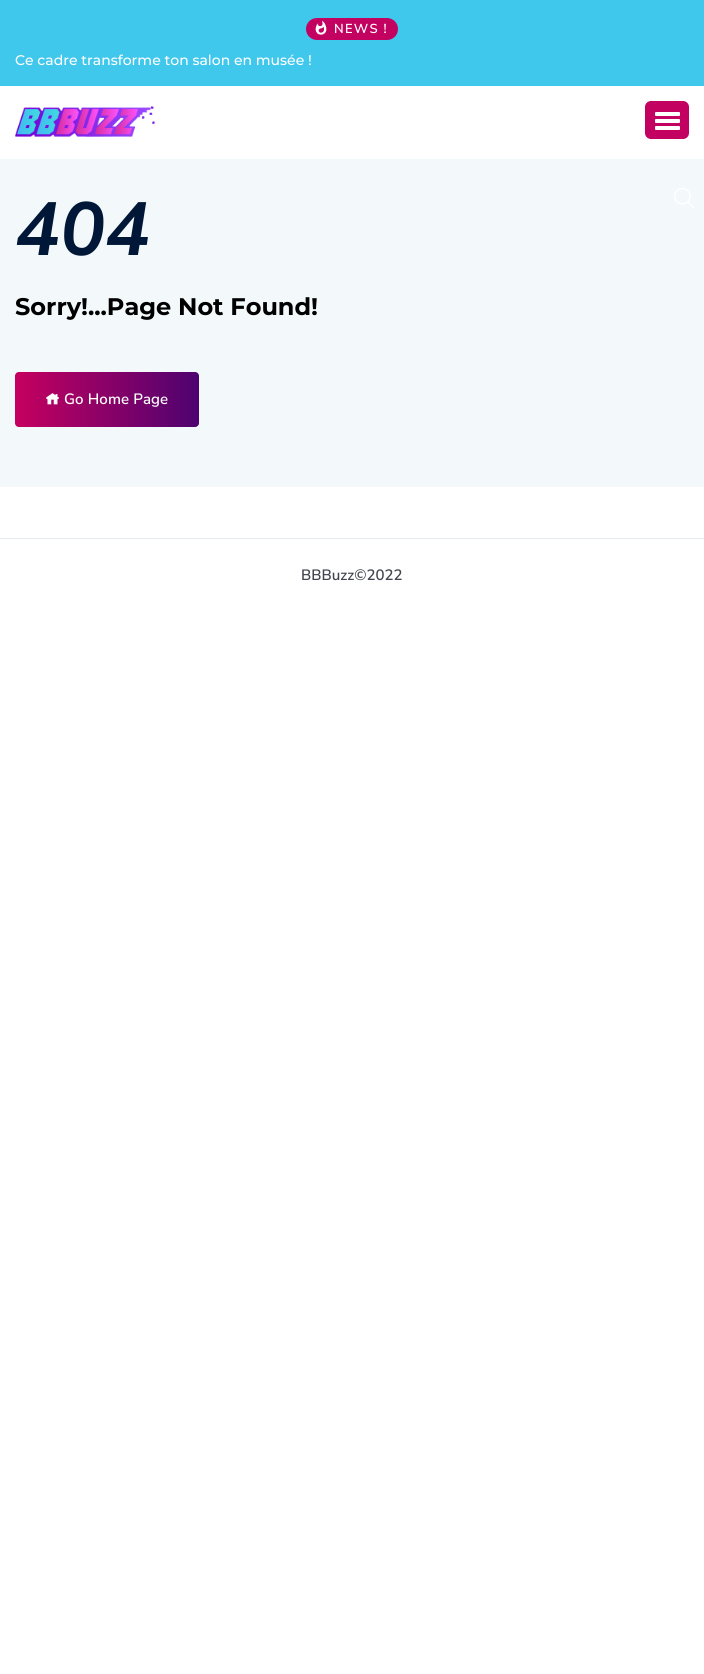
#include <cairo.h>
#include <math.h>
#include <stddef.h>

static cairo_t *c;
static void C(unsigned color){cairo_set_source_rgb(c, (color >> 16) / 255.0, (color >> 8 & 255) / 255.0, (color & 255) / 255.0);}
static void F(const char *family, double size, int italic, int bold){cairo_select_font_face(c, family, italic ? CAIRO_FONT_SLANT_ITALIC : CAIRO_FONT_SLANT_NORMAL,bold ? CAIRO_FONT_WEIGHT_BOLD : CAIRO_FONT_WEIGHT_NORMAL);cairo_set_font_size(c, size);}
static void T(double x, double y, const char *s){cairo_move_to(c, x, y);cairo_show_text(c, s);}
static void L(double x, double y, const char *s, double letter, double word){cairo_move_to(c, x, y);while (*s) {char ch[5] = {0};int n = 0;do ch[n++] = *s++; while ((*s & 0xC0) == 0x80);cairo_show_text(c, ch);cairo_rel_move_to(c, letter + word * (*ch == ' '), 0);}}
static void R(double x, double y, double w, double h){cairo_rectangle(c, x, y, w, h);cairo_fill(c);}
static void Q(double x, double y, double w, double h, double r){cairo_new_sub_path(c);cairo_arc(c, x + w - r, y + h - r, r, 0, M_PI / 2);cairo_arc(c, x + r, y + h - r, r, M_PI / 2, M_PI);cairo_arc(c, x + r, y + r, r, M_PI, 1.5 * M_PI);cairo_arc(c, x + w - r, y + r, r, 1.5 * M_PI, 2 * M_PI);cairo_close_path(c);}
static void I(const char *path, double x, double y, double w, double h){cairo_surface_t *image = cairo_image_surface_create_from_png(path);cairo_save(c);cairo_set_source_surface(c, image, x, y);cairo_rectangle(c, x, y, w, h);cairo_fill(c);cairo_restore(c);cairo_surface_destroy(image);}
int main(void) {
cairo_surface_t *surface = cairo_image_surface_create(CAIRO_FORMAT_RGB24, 704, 1674);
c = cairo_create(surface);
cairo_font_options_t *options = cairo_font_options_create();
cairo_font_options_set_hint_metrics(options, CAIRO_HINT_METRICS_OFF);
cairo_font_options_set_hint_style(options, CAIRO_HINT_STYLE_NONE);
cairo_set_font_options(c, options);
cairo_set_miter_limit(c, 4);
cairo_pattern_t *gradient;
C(0xffffff);
cairo_paint(c);
C(0x40c7ec);
R(0,0,704,86);
C(0xc20160);
Q(306,18,92,22,11);
cairo_fill(c);
I("1.png",315,20,12,15);
F("Nunito Sans SemiBold",13,0,0);
C(0xffffff);
L(334,33,"NEWS !",1.25,0);
F("Montserrat Medium",14,0,0);
T(15,65,"Ce cadre transforme ton salon en musée !");
I("2.png",15,106,140,31);
C(0xc20160);
Q(645,101,44,38,6);
cairo_fill(c);
C(0xffffff);
Q(655,112,25,4,1);
cairo_fill(c);
Q(655,119,25,4,1);
cairo_fill(c);
Q(655,126,25,4,1);
cairo_fill(c);
C(0xf3f8fb);
R(0,159,704,328);
I("3.png",674,188,20,20);
F("Nunito Sans",75,1,1);
C(0x001737);
T(15,255,"404");
F("Montserrat Thin",24,0,0);
C(0x000000);
T(15,315,"Sorry!...Page Not Found!");
gradient = cairo_pattern_create_linear(15,400,199,400);
cairo_pattern_add_color_stop_rgba(gradient,0,0.776,0,0.373,1);
cairo_pattern_add_color_stop_rgba(gradient,1,0.302,0.008,0.439,1);
cairo_set_source(c,gradient);
cairo_pattern_destroy(gradient);
Q(15,372,184,55,4);
cairo_fill(c);
I("4.png",46,393,13,12);
F("Nunito Sans SemiBold",15,0,0);
C(0xffffff);
L(64,404,"Go Home Page",.1,0);
C(0xe5e9f2);
R(0,538,704,1);
C(0x42454f);
T(301,580,"BBBuzz©2022");
cairo_surface_write_to_png(surface, "o.png");
cairo_font_options_destroy(options);
cairo_destroy(c);
cairo_surface_destroy(surface);
return 0;
}
